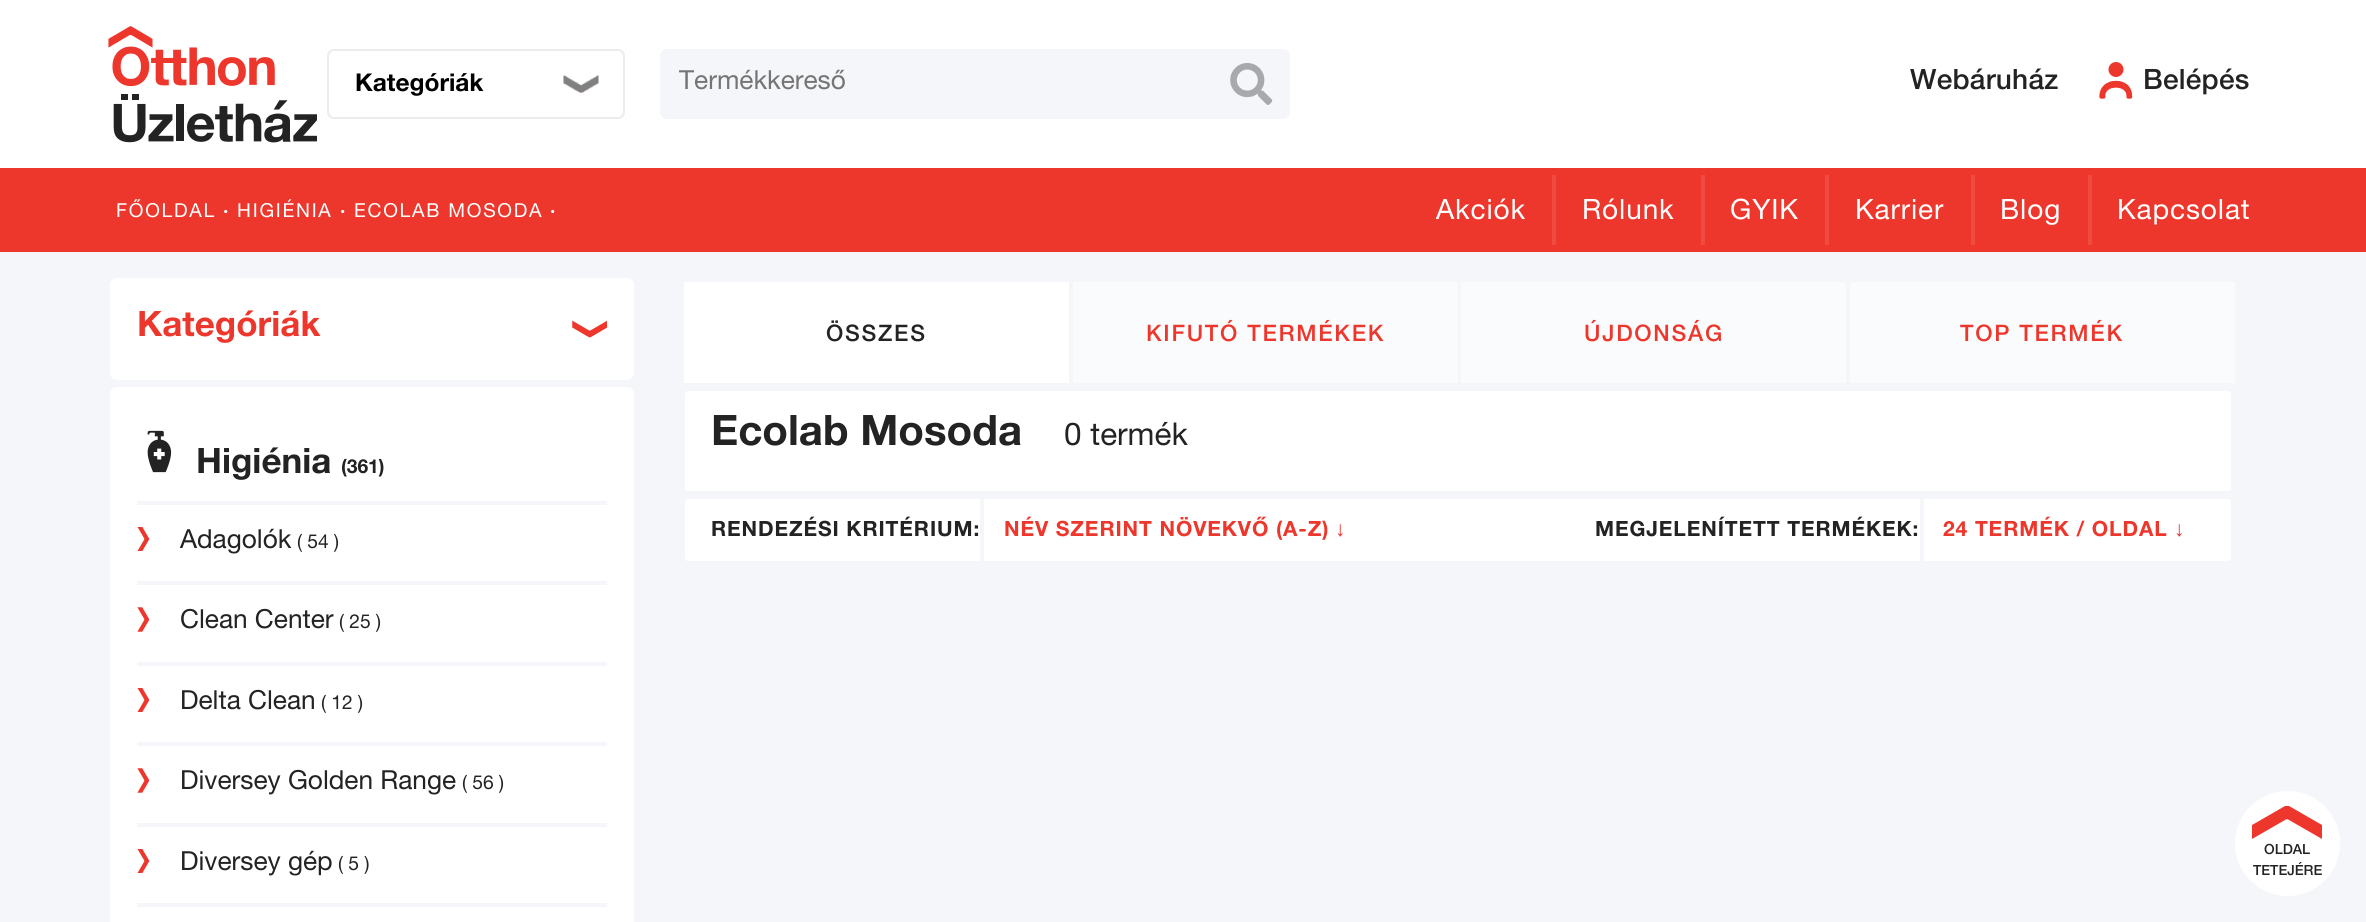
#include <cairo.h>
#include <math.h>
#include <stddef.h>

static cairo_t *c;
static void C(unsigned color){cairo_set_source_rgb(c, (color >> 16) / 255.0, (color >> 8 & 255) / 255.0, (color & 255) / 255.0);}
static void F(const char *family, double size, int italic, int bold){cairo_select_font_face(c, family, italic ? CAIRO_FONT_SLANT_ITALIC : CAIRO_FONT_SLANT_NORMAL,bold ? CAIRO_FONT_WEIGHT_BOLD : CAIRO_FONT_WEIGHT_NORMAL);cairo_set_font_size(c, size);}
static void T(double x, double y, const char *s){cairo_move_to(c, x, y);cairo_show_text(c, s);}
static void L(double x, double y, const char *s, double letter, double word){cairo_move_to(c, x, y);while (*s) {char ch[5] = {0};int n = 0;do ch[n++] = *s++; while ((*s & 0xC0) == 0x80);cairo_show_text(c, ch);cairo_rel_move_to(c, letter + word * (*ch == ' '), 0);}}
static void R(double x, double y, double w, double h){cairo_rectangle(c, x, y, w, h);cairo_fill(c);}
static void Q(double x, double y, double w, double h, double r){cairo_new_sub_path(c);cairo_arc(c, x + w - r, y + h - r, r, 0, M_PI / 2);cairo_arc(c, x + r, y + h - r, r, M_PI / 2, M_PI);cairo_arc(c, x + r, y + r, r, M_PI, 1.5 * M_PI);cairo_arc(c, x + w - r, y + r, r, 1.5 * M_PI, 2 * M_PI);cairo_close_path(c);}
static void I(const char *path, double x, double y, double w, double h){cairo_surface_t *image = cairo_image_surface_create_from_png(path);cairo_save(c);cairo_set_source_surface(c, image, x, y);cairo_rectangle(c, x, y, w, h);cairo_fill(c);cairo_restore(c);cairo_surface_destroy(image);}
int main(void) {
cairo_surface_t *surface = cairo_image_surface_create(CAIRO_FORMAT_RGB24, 2366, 922);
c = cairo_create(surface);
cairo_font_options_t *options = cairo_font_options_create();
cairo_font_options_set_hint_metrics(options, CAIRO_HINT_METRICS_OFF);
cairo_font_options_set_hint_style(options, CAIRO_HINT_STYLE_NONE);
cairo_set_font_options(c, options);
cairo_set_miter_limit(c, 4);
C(0xf5f6fa);
cairo_paint(c);
C(0xffffff);
R(0,0,2366,168);
I("1.png",108,26,209,117);
Q(328,50,296,68,6);
C(0xeeebeb);
cairo_stroke(c);
F("Helvetica Neue",24.5,0,1);
C(0x000000);
T(355,91,"Kategóriák");
I("2.png",563,75,36,18);
C(0xf5f6fa);
Q(660,49,630,70,7);
cairo_fill(c);
F("Helvetica Neue",26.25,0,0);
C(0x757575);
T(679,89,"Termékkereső");
I("3.png",1230,63,43,42);
F("Helvetica Neue Medium",28,0,0);
C(0x232323);
L(1910,89,"Webáruház",.25,0);
I("4.png",2099,62,34,37);
L(2143,89,"Belépés",.25,0);
C(0xed372c);
R(0,168,2366,84);
F("Helvetica Neue",19.25,0,0);
C(0xffffff);
L(116,217,"FŐOLDAL",1.75,0);
F("Helvetica Neue",19.25,0,1);
L(223,217,"·",1.75,0);
F("Helvetica Neue",19.25,0,0);
L(237,217,"HIGIÉNIA",1.75,0);
F("Helvetica Neue",19.25,0,1);
L(340,217,"·",1.75,0);
F("Helvetica Neue",19.25,0,0);
L(354,217,"ECOLAB MOSODA",1.75,0);
F("Helvetica Neue",19.25,0,1);
L(550,217,"·",1.75,0);
C(0xef4b41);
R(1552,175,4,70);
F("Helvetica Neue",28,0,0);
C(0xffffff);
L(1436,219,"Akciók",.9,0);
C(0xef4b41);
R(1701,175,4,70);
C(0xffffff);
L(1582,219,"Rólunk",.9,0);
C(0xef4b41);
R(1825,175,4,70);
C(0xffffff);
L(1730,219,"GYIK",.9,0);
C(0xef4b41);
R(1971,175,4,70);
C(0xffffff);
L(1855,219,"Karrier",.9,0);
C(0xef4b41);
R(2088,175,4,70);
C(0xffffff);
L(2000,219,"Blog",.9,0);
L(2117,219,"Kapcsolat",.9,0);
Q(110,278,524,102,7);
cairo_fill(c);
F("Helvetica Neue",35,0,1);
C(0xed372c);
T(137,336,"Kategóriák");
I("5.png",572,320,35,18);
C(0xffffff);
Q(110,387,524,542,7);
cairo_fill(c);
I("6.png",147,430,25,43);
C(0x232323);
T(196,473,"Higiénia");
F("Helvetica Neue",19.25,0,1);
T(341,473,"(361)");
I("7.png",137,527,13,24);
C(0xf5f6fa);
R(137,501,470,4);
F("Helvetica Neue",26.25,0,0);
C(0x232323);
T(180,548,"Adagolók");
F("Helvetica Neue",19.25,0,0);
T(297,548,"( 54 )");
I("8.png",137,607,13,25);
C(0xf5f6fa);
R(137,581,470,4);
F("Helvetica Neue",26.25,0,0);
C(0x232323);
T(180,628,"Clean Center");
F("Helvetica Neue",19.25,0,0);
T(339,628,"( 25 )");
I("7.png",137,688,13,24);
C(0xf5f6fa);
R(137,662,470,4);
F("Helvetica Neue",26.25,0,0);
C(0x232323);
T(180,709,"Delta Clean");
F("Helvetica Neue",19.25,0,0);
T(321,709,"( 12 )");
I("8.png",137,768,13,25);
C(0xf5f6fa);
R(137,742,470,4);
F("Helvetica Neue",26.25,0,0);
C(0x232323);
T(180,789,"Diversey Golden Range");
F("Helvetica Neue",19.25,0,0);
T(462,789,"( 56 )");
I("7.png",137,849,13,24);
C(0xf5f6fa);
R(137,823,470,4);
F("Helvetica Neue",26.25,0,0);
C(0x232323);
T(180,870,"Diversey gép");
F("Helvetica Neue",19.25,0,0);
T(338,870,"( 5 )");
C(0xf5f6fa);
R(137,903,470,4);
C(0xffffff);
R(684,282,385,101);
F("Helvetica Neue Medium",22.75,0,0);
C(0x232323);
L(826,341,"ÖSSZES",1.75,0);
C(0xfafbfd);
R(1073,282,385,101);
C(0xed372c);
L(1146,341,"KIFUTÓ TERMÉKEK",1.75,0);
C(0xfafbfd);
R(1461,282,385,101);
C(0xed372c);
L(1584,341,"ÚJDONSÁG",1.75,0);
C(0xfafbfd);
R(1850,282,385,101);
C(0xed372c);
L(1960,341,"TOP TERMÉK",1.75,0);
C(0xffffff);
Q(683,389,1550,104,5);
cairo_fill_preserve(c);
C(0xf5f6fa);
cairo_set_line_width(c,4);
cairo_stroke(c);
F("Helvetica Neue",42,0,1);
C(0x232323);
T(711,445,"Ecolab Mosoda");
F("Helvetica Neue",31.5,0,0);
T(1064,445,"0 termék");
C(0xffffff);
Q(683,497,1550,66,5);
cairo_fill_preserve(c);
C(0xf5f6fa);
cairo_stroke(c);
F("Helvetica Neue",21,0,1);
C(0x232323);
L(711,536,"RENDEZÉSI KRITÉRIUM:",.9,0);
C(0xf5f6fa);
R(980,495,4,70);
C(0xed372c);
L(1004,536,"NÉV SZERINT NÖVEKVŐ (A-Z)",.9,0);
F("Liberation Sans",21,0,1);
L(1335,536,"↓",.9,0);
F("Helvetica Neue",21,0,1);
C(0x232323);
L(1595,536,"MEGJELENÍTETT TERMÉKEK:",.9,0);
C(0xf5f6fa);
R(1920,495,4,70);
C(0xed372c);
L(1943,536,"24 TERMÉK / OLDAL",.9,0);
F("Liberation Sans",21,0,1);
L(2174,536,"↓",.9,0);
C(0xffffff);
cairo_new_path(c);
cairo_arc(c,2287.5,843.5,52.5,0,2 * M_PI);
cairo_fill(c);
C(0xed372c);
cairo_new_path(c);
cairo_move_to(c,2289,820);
cairo_line_to(c,2322,839);
cairo_line_to(c,2322,825);
cairo_line_to(c,2289,806);
cairo_curve_to(c,2288,806,2286,806,2285,806);
cairo_line_to(c,2252,825);
cairo_line_to(c,2252,839);
cairo_line_to(c,2285,820);
cairo_curve_to(c,2286,819,2288,819,2289,820);
cairo_close_path(c);
cairo_fill(c);
F("Helvetica Neue Medium",14,0,0);
C(0x232323);
T(2264,854,"OLDAL");
T(2253,875,"TETEJÉRE");
cairo_surface_write_to_png(surface, "o.png");
cairo_font_options_destroy(options);
cairo_destroy(c);
cairo_surface_destroy(surface);
return 0;
}
